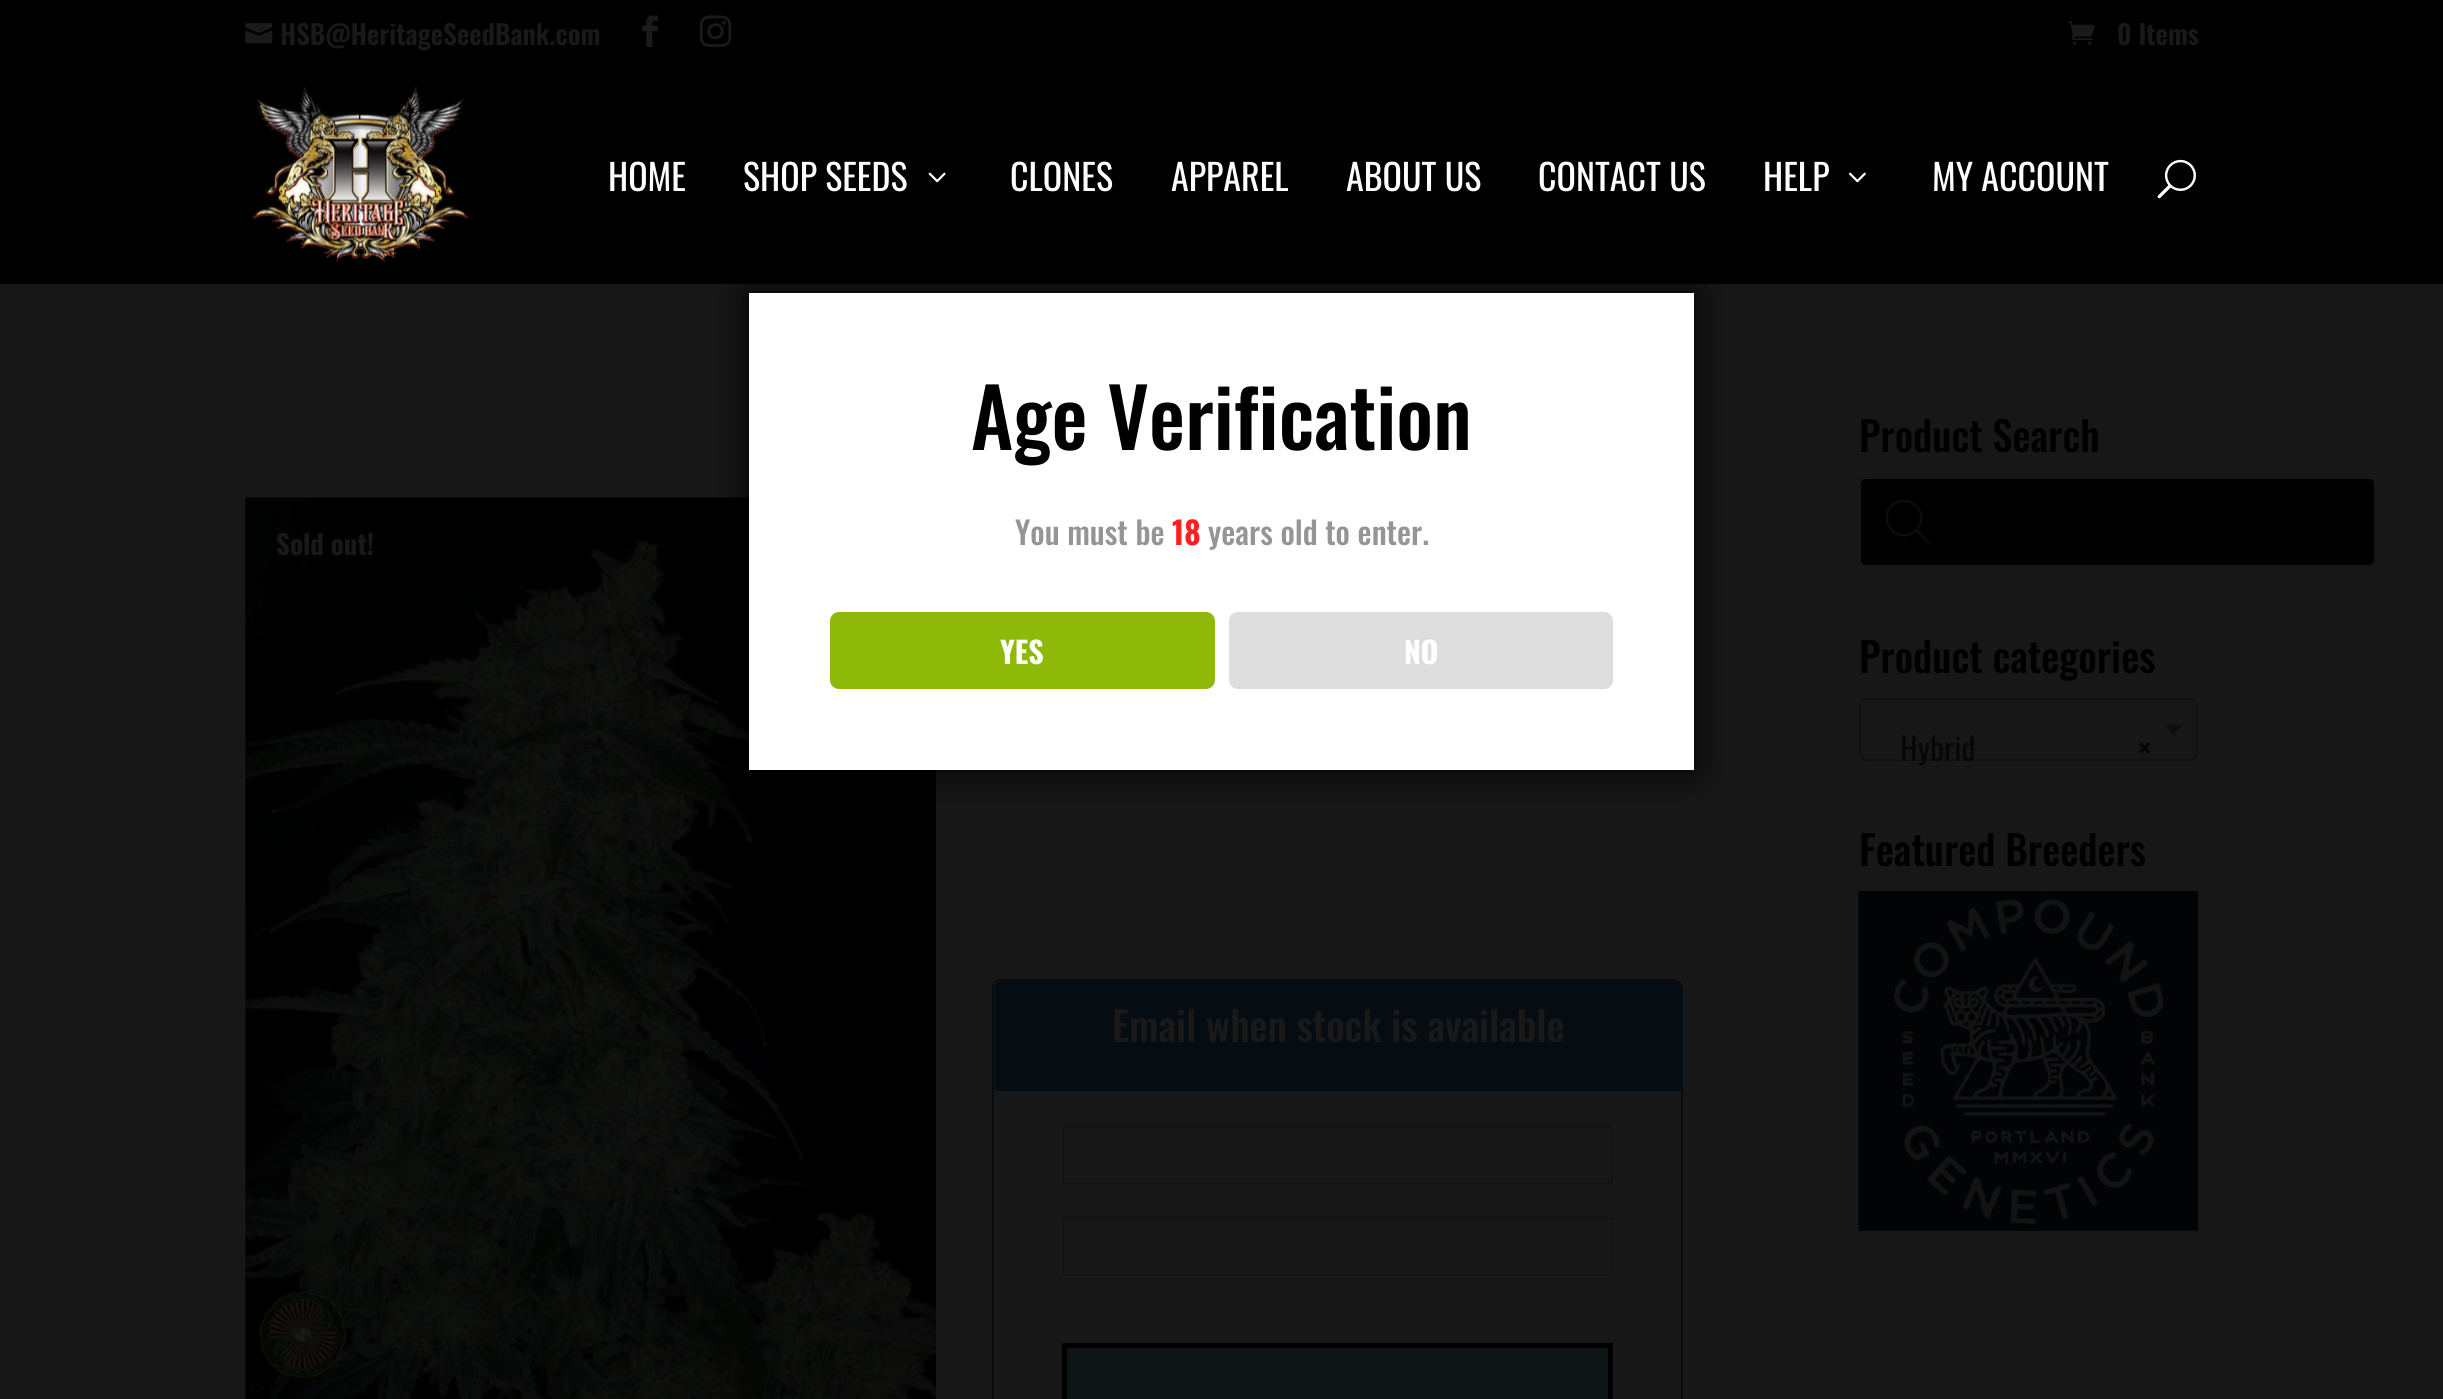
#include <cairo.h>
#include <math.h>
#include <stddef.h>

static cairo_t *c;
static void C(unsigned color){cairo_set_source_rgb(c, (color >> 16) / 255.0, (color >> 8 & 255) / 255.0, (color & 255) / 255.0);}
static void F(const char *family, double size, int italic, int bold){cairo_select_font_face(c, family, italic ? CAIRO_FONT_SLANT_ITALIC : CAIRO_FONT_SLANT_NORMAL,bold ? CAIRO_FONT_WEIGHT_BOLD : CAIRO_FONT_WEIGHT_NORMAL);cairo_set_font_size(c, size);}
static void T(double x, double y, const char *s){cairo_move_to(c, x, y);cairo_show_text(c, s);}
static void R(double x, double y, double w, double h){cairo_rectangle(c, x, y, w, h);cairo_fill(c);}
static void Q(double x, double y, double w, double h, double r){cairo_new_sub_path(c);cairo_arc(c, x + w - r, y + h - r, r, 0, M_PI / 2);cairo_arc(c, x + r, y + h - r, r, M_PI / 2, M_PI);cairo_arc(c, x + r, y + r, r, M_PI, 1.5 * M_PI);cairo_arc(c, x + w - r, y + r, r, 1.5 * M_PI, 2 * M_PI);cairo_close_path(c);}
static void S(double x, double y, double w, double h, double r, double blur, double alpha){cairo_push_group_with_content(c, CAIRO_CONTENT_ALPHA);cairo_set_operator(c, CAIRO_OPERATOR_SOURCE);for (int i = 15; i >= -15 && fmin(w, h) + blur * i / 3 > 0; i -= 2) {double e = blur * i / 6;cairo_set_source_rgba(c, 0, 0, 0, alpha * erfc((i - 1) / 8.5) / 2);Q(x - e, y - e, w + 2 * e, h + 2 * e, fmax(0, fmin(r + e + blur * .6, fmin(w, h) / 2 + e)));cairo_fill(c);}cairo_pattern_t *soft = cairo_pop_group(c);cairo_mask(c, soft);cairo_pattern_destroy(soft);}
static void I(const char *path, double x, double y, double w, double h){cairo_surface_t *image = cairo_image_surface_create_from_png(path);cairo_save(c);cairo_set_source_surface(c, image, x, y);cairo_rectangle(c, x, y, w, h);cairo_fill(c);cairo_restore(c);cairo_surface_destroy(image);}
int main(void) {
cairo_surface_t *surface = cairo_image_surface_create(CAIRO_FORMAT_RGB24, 2443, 1399);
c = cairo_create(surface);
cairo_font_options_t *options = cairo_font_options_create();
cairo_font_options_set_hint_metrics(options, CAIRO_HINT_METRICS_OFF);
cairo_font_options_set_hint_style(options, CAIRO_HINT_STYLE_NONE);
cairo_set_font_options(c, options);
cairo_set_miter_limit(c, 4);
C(0x000000);
cairo_paint(c);
I("1.png",245,23,28,21);
F("Oswald SemiBold",27,0,0);
C(0x191919);
T(280,45,"HSB@HeritageSeedBank.com");
I("2.png",642,15,17,32);
I("3.png",699,15,33,32);
I("4.png",2067,21,28,24);
T(2117,45,"0 Items");
C(0x171717);
R(1789,284,2,2);
C(0x151515);
cairo_new_path(c);
cairo_move_to(c,0,284);
cairo_line_to(c,0,286);
cairo_line_to(c,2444,286);
cairo_line_to(c,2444,70);
cairo_line_to(c,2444,284);
cairo_close_path(c);
cairo_fill(c);
I("5.png",253,86,215,177);
F("Oswald",36,0,0);
C(0xffffff);
T(608,191,"HOME");
T(743,191,"SHOP SEEDS");
I("6.png",928,172,18,11);
T(1010,191,"CLONES");
T(1171,191,"APPAREL");
T(1346,191,"ABOUT US");
T(1538,191,"CONTACT US");
T(1763,191,"HELP");
I("7.png",1849,172,17,11);
T(1932,191,"MY ACCOUNT");
I("8.png",2157,159,39,40);
C(0x171717);
R(0,286,2443,1113);
I("9.png",245,497,691,902);
F("Oswald",27,0,1);
C(0x191919);
T(276,555,"Sold out!");
Q(993,980,689,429,8);
C(0x050c12);
cairo_stroke(c);
cairo_new_path(c);
cairo_move_to(c,1002,981);
cairo_line_to(c,1674,981);
cairo_curve_to(c,1678,981,1681,984,1681,988);
cairo_line_to(c,1681,1091);
cairo_line_to(c,995,1091);
cairo_line_to(c,995,988);
cairo_curve_to(c,995,984,998,981,1002,981);
cairo_close_path(c);
cairo_fill(c);
F("Oswald Medium",40.5,0,0);
C(0x191919);
T(1112,1042,"Email when stock is available");
cairo_rectangle(c,1063,1126,549,57);
C(0x131313);
cairo_stroke(c);
cairo_rectangle(c,1063,1218,549,57);
cairo_stroke(c);
C(0x0d1517);
cairo_rectangle(c,1064.5,1345.5,546,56);
cairo_fill_preserve(c);
C(0x000000);
cairo_set_line_width(c,5);
cairo_stroke(c);
T(1859,452,"Product Search");
Q(1860,478,515,88,6);
cairo_fill_preserve(c);
C(0x161616);
cairo_set_line_width(c,2);
cairo_stroke(c);
cairo_save(c);
cairo_rectangle(c,1886,500,45,45);
cairo_clip(c);
C(0x0d0d0d);
cairo_new_path(c);
cairo_move_to(c,1930,543);
cairo_line_to(c,1918,530);
cairo_curve_to(c,1933,513,1908,488,1891,505);
cairo_curve_to(c,1874,522,1899,547,1916,532);
cairo_line_to(c,1929,544);
cairo_close_path(c);
cairo_move_to(c,1888,518);
cairo_curve_to(c,1888,497,1920,497,1920,518);
cairo_curve_to(c,1920,539,1888,539,1888,518);
cairo_close_path(c);
cairo_fill(c);
cairo_restore(c);
C(0x000000);
T(1859,673,"Product categories");
Q(1860,699,337,61,8);
C(0x111111);
cairo_stroke(c);
C(0x0e0e0e);
cairo_new_path(c);
cairo_move_to(c,2164.5,724.5);
cairo_line_to(c,2182.5,724.5);
cairo_line_to(c,2173.5,736);
cairo_close_path(c);
cairo_fill(c);
F("Oswald",31.5,0,0);
C(0x070707);
T(1900,761,"Hybrid");
F("Oswald",31.5,0,1);
T(2137,761,"×");
F("Oswald Medium",40.5,0,0);
C(0x000000);
T(1859,866,"Featured Breeders");
I("10.png",1858,891,341,340);
C(0x000000);
S(749,293,945,477,0,17,1);
C(0xffffff);
R(749,293,945,477);
F("Oswald Medium",81,0,0);
C(0x000000);
T(971,450,"Age Verification");
F("Oswald Medium",31.5,0,0);
C(0x959595);
T(1015,545,"You must be");
F("Oswald",31.5,0,1);
C(0xff1f1f);
T(1172,545,"18");
F("Oswald Medium",31.5,0,0);
C(0x959595);
T(1208,545,"years old to enter.");
C(0x8eb908);
Q(830,612,385,77,9);
cairo_fill(c);
F("Oswald",30,0,1);
C(0xffffff);
T(1000,664,"YES");
C(0xdddddd);
Q(1229,612,384,77,9);
cairo_fill(c);
C(0xffffff);
T(1404,664,"NO");
cairo_surface_write_to_png(surface, "o.png");
cairo_font_options_destroy(options);
cairo_destroy(c);
cairo_surface_destroy(surface);
return 0;
}
